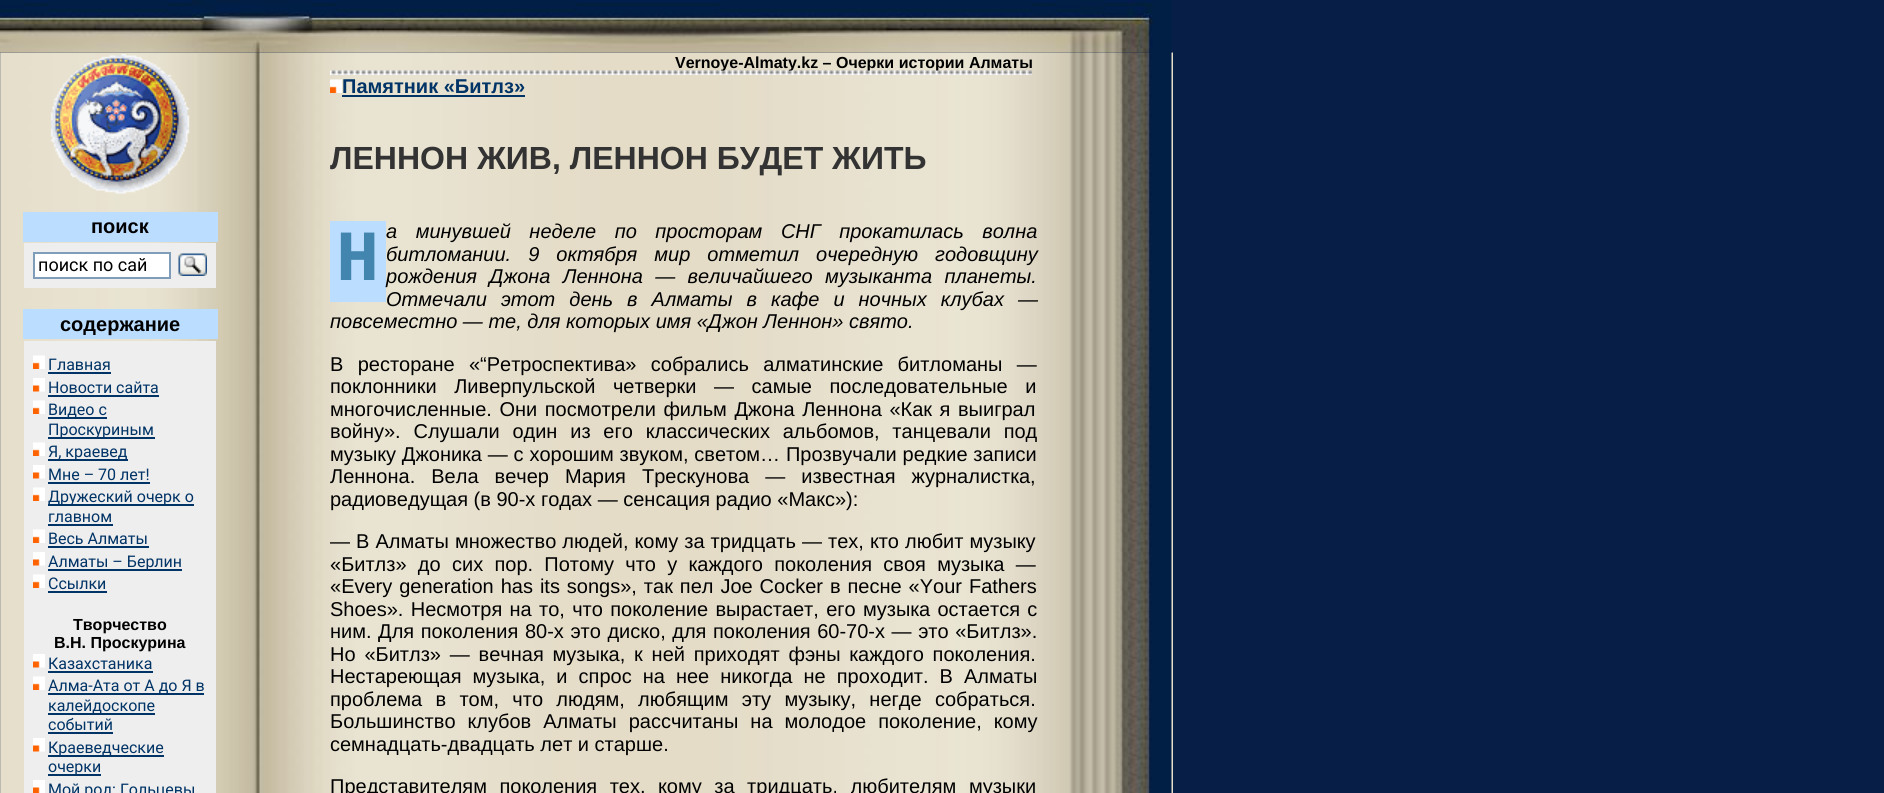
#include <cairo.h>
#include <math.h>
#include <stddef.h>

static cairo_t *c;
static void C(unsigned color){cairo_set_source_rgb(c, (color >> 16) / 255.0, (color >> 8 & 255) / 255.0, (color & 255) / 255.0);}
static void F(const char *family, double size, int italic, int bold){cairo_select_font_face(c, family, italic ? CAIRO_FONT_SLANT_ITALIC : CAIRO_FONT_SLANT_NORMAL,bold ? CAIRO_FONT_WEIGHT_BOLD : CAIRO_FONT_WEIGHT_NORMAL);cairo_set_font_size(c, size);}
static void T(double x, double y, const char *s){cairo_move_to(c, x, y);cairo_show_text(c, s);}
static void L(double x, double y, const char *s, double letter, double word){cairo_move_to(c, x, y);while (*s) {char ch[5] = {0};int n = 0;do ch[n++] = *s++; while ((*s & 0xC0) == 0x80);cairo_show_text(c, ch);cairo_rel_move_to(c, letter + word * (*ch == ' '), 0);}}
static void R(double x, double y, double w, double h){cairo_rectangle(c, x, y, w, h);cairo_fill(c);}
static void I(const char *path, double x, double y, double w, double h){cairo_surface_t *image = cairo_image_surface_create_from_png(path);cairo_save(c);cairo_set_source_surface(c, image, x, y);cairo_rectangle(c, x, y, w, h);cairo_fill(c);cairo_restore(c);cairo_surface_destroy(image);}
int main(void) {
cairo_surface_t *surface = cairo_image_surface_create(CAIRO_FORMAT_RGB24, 1884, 793);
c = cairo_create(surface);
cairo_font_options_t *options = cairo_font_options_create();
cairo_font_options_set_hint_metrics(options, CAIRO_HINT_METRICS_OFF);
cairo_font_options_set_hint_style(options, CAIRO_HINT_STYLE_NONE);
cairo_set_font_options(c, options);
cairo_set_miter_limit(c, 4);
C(0x071e47);
cairo_paint(c);
I("2.png",0,52,1173,741);
I("1.png",0,0,1172,53);
I("3.png",50,54,140,140);
C(0xbbddff);
R(23,212,195,30);
F("Liberation Sans",20,0,1);
C(0x000000);
T(91,233,"поиск");
C(0xeeeeee);
R(24,243,192,45);
C(0xffffff);
cairo_rectangle(c,34,253,136,25);
cairo_fill_preserve(c);
C(0x7f9db9);
cairo_stroke(c);
F("Roboto",18,0,0);
C(0x000000);
T(38,271,"поиск по сай");
I("4.png",178,253,29,23);
C(0xbbddff);
R(23,309,195,30);
F("Liberation Sans",20,0,1);
C(0x000000);
T(60,331,"содержание");
C(0xeeeeee);
R(24,341,192,452);
I("5.png",33,355,12,14);
F("Roboto",16,0,0);
C(0x003366);
T(48,370,"Главная");
R(48,372,63,2);
I("6.png",33,378,12,14);
T(48,393,"Новости сайта");
R(48,395,111,2);
I("5.png",33,400,12,14);
R(48,417,59,2);
T(48,415,"Видео с");
R(48,437,107,2);
T(48,435,"Проскуриным");
I("5.png",33,442,12,14);
R(48,459,80,2);
T(48,457,"Я, краевед");
I("6.png",33,465,12,14);
T(48,480,"Мне – 70 лет!");
R(48,482,102,2);
I("5.png",33,487,12,14);
R(48,504,146,2);
T(48,502,"Дружеский очерк о");
T(48,522,"главном");
R(48,524,65,2);
I("5.png",33,529,12,14);
T(48,544,"Весь Алматы");
R(48,546,101,2);
I("6.png",33,552,12,14);
R(48,569,134,2);
T(48,567,"Алматы – Берлин");
I("5.png",33,574,12,14);
T(48,589,"Ссылки");
R(48,591,59,2);
F("Liberation Sans",16,0,1);
C(0x000000);
T(73,630,"Творчество");
T(54,648,"В.Н. Проскурина");
I("6.png",33,654,12,14);
F("Roboto",16,0,0);
C(0x003366);
T(48,669,"Казахстаника");
R(48,671,105,2);
I("5.png",33,676,12,14);
R(48,693,156,2);
T(48,691,"Алма-Ата от А до Я в");
R(48,713,107,2);
T(48,711,"калейдоскопе");
T(48,730,"событий");
R(48,732,65,2);
I("6.png",33,738,12,14);
R(48,755,116,2);
T(48,753,"Краеведческие");
R(48,774,53,2);
T(48,772,"очерки");
I("7.png",33,780,12,13);
T(48,795,"Мой род: Гольцевы");
F("Liberation Sans",16,0,1);
C(0x000000);
T(675,68,"Vernoye-Almaty.kz – Очерки истории Алматы");
I("8.png",330,70,702,5);
I("9.png",330,79,12,14);
F("Liberation Sans",20,0,1);
C(0x003366);
T(342,93,"Памятник «Битлз»");
R(342,95,183,2);
F("Liberation Sans",32,0,1);
C(0x333333);
T(330,169,"ЛЕННОН ЖИВ, ЛЕННОН БУДЕТ ЖИТЬ");
C(0xbbddff);
R(330,221,56,81);
F("Liberation Mono",72,0,1);
C(0x4285af);
T(336,280,"Н");
F("Liberation Sans",20,1,0);
C(0x000000);
L(386,238,"а минувшей неделе по просторам СНГ прокатилась волна",0,13);
L(386,261,"битломании. 9 октября мир отметил очередную годовщину",0,11.5);
L(386,283,"рождения Джона Леннона — величайшего музыканта планеты.",0,6.75);
L(386,306,"Отмечали этот день в Алматы в кафе и ночных клубах —",0,8.5);
T(330,328,"повсеместно — те, для которых имя «Джон Леннон» свято.");
F("Liberation Sans",20,0,0);
L(330,371,"В ресторане «“Ретроспектива» собрались алматинские битломаны —",0,8.75);
L(330,393,"поклонники Ливерпульской четверки — самые последовательные и",0,12);
L(330,416,"многочисленные. Они посмотрели фильм Джона Леннона «Как я выиграл",0,2);
L(330,438,"войну». Слушали один из его классических альбомов, танцевали под",0,7.25);
L(330,461,"музыку Джоника — с хорошим звуком, светом… Прозвучали редкие записи",0,.25);
L(330,483,"Леннона. Вела вечер Мария Трескунова — известная журналистка,",0,10.5);
T(330,506,"радиоведущая (в 90-х годах — сенсация радио «Макс»):");
L(330,548,"— В Алматы множество людей, кому за тридцать — тех, кто любит музыку",0,.5);
L(330,571,"«Битлз» до сих пор. Потому что у каждого поколения своя музыка —",0,5.75);
L(330,593,"«Every generation has its songs», так пел Joe Cocker в песне «Your Fathers",0,1.4);
L(330,616,"Shoes». Несмотря на то, что поколение вырастает, его музыка остается с",0,1.75);
L(330,638,"ним. Для поколения 80-х это диско, для поколения 60-70-х — это «Битлз».",0,1);
L(330,661,"Но «Битлз» — вечная музыка, к ней приходят фэны каждого поколения.",0,3.25);
L(330,683,"Нестареющая музыка, и спрос на нее никогда не проходит. В Алматы",0,5.5);
L(330,706,"проблема в том, что людям, любящим эту музыку, негде собраться.",0,7.75);
L(330,728,"Большинство клубов Алматы рассчитаны на молодое поколение, кому",0,6.5);
T(330,751,"семнадцать-двадцать лет и старше.");
L(330,793,"Представителям поколения тех, кому за тридцать, любителям музыки",0,7);
cairo_surface_write_to_png(surface, "o.png");
cairo_font_options_destroy(options);
cairo_destroy(c);
cairo_surface_destroy(surface);
return 0;
}
